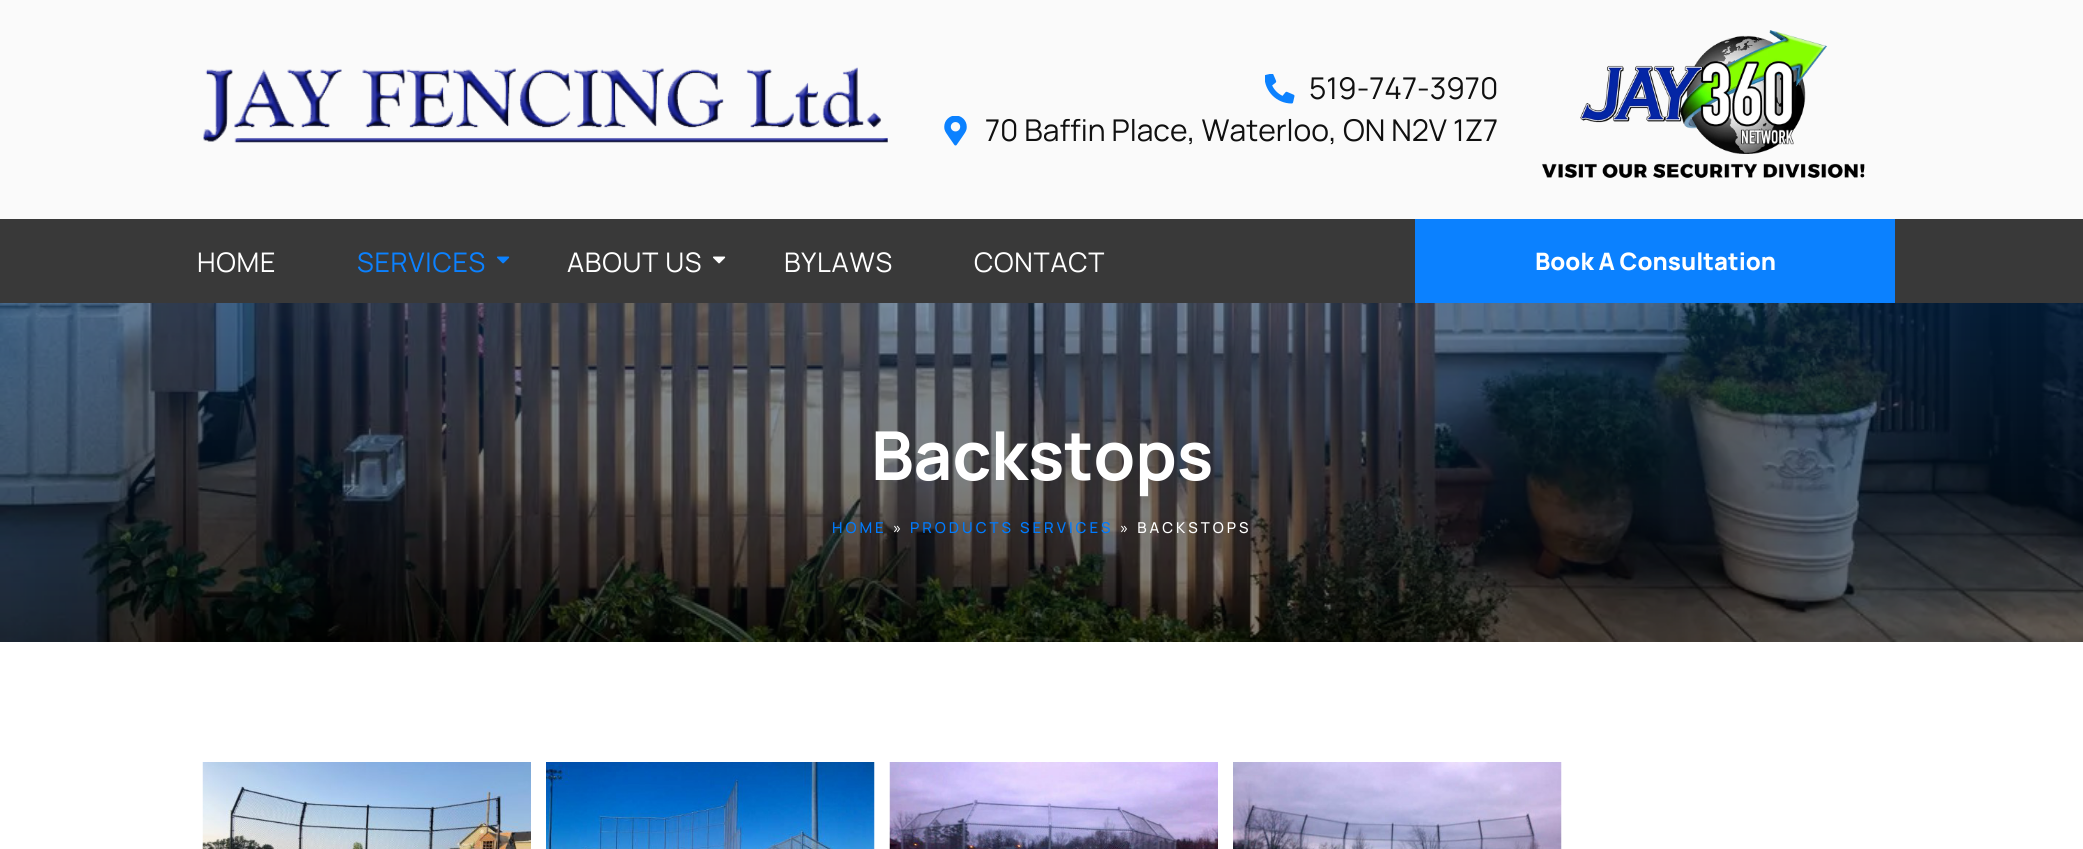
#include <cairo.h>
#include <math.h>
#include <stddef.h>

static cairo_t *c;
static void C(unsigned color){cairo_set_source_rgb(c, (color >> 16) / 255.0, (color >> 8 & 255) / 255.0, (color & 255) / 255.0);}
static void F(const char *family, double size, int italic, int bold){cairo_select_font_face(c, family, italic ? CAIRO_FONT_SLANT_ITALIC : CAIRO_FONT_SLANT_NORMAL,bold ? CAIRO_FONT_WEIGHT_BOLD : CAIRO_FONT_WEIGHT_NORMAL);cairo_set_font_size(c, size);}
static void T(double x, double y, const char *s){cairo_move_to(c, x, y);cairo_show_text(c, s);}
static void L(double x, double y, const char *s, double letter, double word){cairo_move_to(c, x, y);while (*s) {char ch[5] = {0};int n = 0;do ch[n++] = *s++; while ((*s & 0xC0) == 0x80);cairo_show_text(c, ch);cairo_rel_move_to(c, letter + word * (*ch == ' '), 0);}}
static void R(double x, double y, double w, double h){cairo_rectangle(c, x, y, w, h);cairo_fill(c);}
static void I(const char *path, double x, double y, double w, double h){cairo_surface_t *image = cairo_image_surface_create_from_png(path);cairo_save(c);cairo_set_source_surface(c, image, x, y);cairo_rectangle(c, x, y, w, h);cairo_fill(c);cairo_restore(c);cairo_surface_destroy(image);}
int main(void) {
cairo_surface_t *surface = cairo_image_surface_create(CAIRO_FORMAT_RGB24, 2083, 849);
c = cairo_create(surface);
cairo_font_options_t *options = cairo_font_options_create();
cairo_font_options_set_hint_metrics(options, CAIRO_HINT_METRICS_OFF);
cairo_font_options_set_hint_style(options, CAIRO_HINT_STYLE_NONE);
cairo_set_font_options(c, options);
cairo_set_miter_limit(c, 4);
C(0xffffff);
cairo_paint(c);
C(0xfafafa);
R(0,0,2083,219);
I("1.png",203,67,685,76);
I("2.png",1265,74,30,30);
F("Manrope",30,0,0);
C(0x101010);
T(1309,99,"519-747-3970");
I("3.png",944,116,23,30);
T(985,141,"70 Baffin Place, Waterloo, ON N2V 1Z7");
I("4.png",1541,30,324,148);
C(0x393939);
R(0,219,2083,84);
F("Manrope",27,0,0);
C(0xffffff);
L(197,272,"HOME",.75,0);
C(0x0b81ff);
L(357,272,"SERVICES",.75,0);
I("5.png",497,256,13,8);
C(0xffffff);
L(567,272,"ABOUT US",.75,0);
I("6.png",713,256,13,8);
L(784,272,"BYLAWS",.75,0);
L(974,272,"CONTACT",.75,0);
C(0x0b81ff);
R(1415,219,480,84);
F("Manrope ExtraBold",24,0,0);
C(0xffffff);
T(1535,270,"Book A Consultation");
I("7.png",0,303,2083,339);
F("Manrope",67.5,0,1);
T(871,480,"Backstops");
F("Manrope Medium",15,0,0);
C(0x007bff);
L(832,533,"HOME",3,0);
C(0xffffff);
L(893,533,"»",3,0);
C(0x007bff);
L(910,533,"PRODUCTS SERVICES",3,0);
C(0xffffff);
L(1120,533,"» BACKSTOPS",3,0);
I("8.png",202,762,329,87);
I("9.png",546,762,329,87);
I("10.png",889,762,329,87);
I("11.png",1233,762,329,87);
cairo_surface_write_to_png(surface, "o.png");
cairo_font_options_destroy(options);
cairo_destroy(c);
cairo_surface_destroy(surface);
return 0;
}
